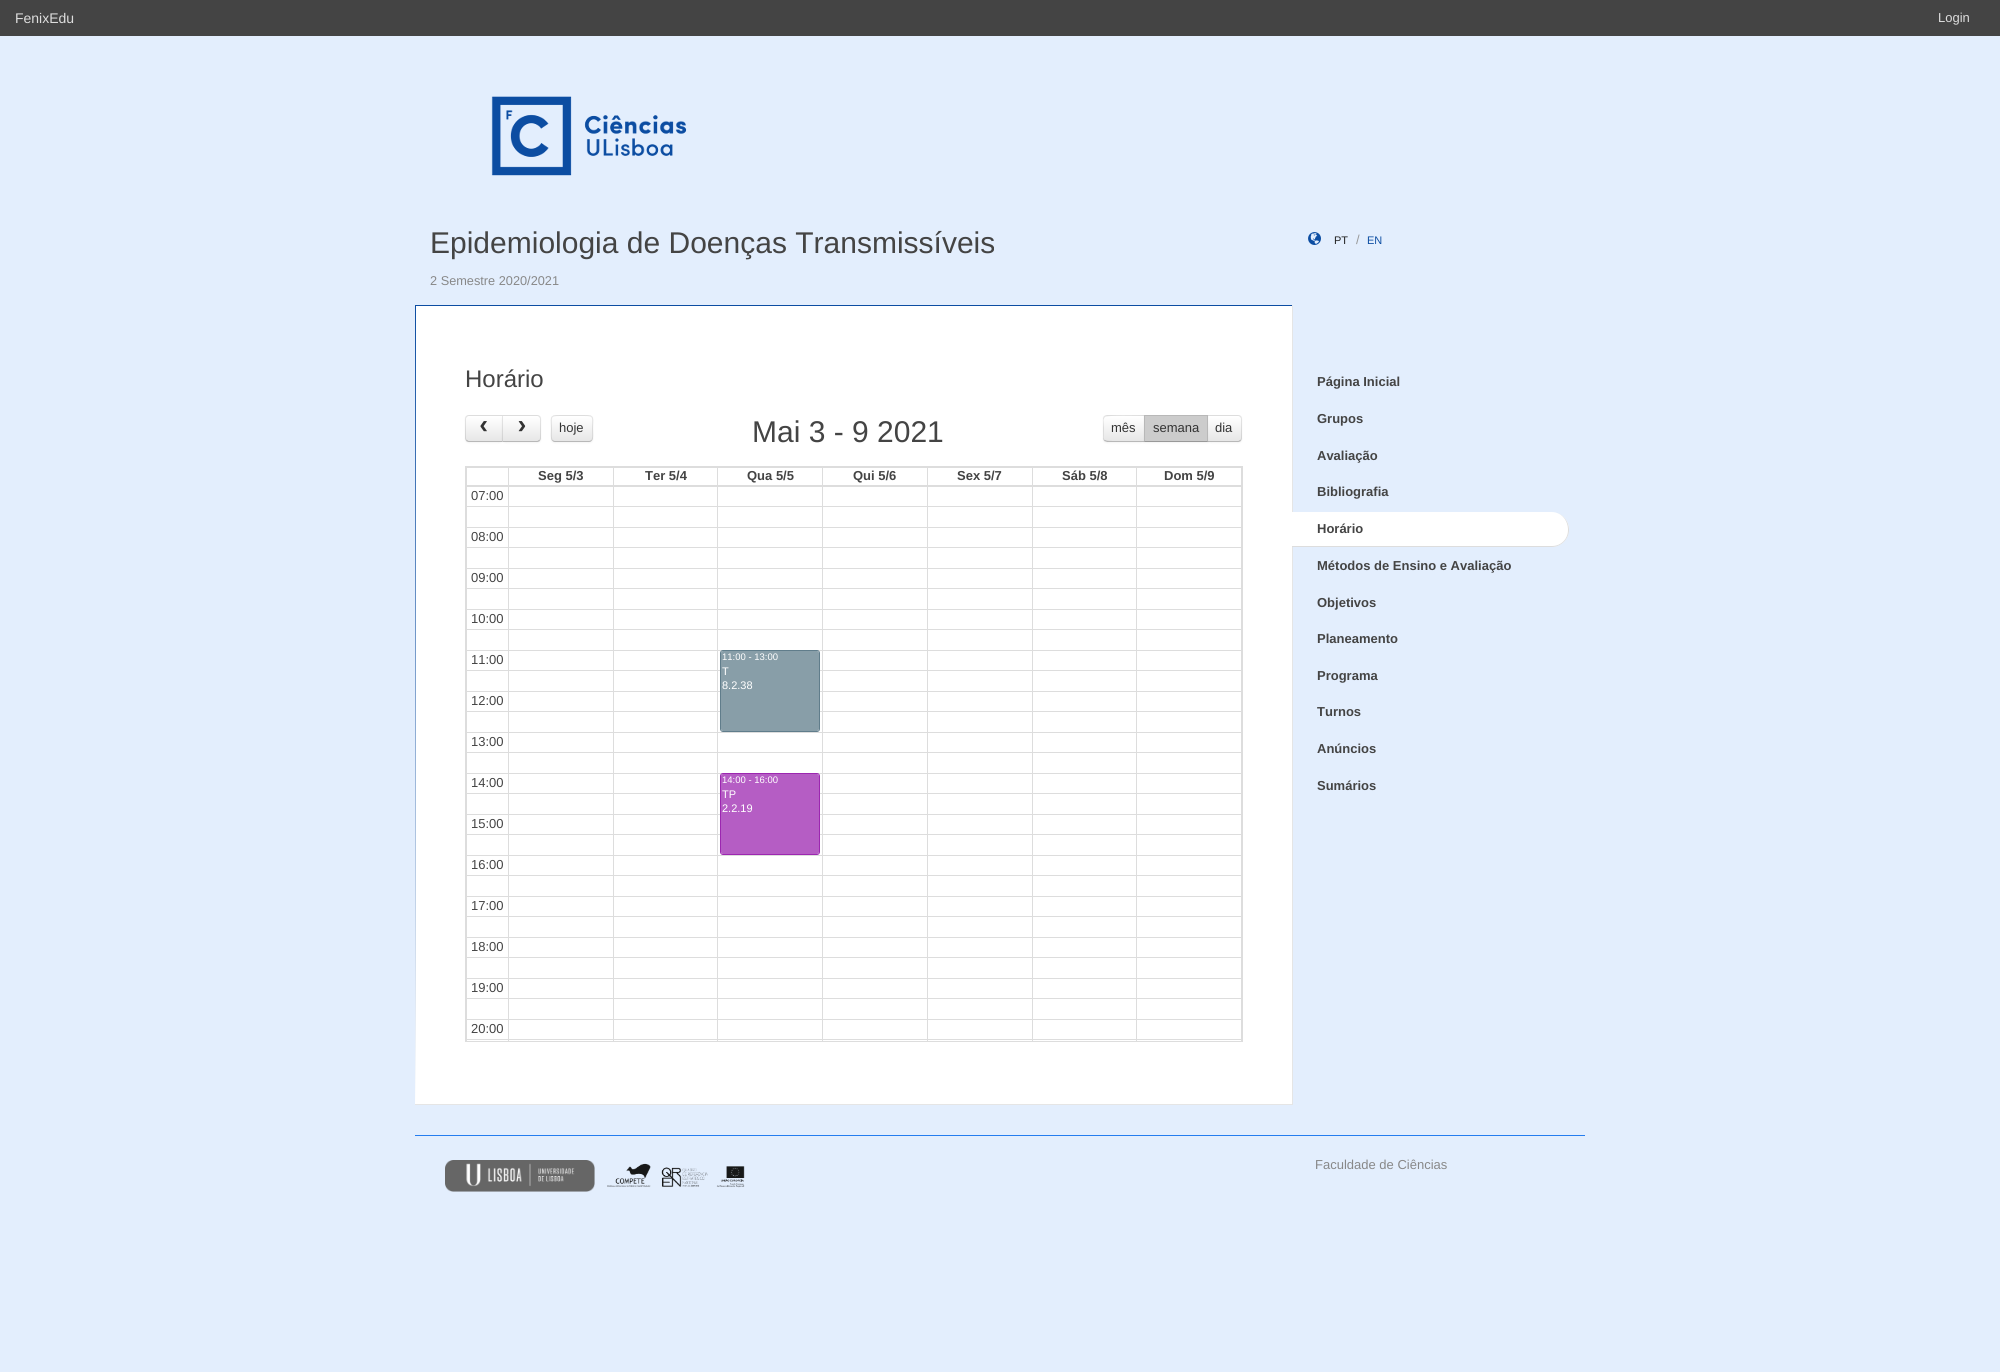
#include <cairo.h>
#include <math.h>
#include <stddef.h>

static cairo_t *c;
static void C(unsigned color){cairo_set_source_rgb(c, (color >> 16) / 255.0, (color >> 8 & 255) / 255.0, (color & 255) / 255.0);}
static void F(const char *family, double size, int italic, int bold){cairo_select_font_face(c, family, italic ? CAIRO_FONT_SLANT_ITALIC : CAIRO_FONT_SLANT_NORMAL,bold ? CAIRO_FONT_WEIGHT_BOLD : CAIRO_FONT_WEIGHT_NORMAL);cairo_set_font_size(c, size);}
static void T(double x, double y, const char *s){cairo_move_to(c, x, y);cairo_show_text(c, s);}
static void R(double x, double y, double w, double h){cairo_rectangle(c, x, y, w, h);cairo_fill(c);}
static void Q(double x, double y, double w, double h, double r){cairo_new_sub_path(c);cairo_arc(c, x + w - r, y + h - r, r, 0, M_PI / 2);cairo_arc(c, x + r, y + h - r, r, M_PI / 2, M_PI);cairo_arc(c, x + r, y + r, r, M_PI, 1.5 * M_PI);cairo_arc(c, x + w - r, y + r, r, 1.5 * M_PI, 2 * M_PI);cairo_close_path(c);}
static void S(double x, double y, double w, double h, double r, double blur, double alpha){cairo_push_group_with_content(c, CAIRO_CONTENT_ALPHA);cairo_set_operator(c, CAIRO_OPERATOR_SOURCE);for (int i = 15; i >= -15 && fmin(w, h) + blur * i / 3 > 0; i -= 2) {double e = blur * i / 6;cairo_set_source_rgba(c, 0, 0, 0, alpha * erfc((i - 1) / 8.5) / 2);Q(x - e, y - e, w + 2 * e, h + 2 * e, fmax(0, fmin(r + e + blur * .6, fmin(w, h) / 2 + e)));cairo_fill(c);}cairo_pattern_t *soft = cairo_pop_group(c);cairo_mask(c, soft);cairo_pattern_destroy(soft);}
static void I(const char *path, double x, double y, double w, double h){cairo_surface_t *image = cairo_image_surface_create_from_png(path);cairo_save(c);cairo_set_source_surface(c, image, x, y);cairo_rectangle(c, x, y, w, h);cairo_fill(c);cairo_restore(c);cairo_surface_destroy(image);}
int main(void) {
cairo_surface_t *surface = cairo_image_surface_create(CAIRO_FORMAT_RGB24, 2000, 1372);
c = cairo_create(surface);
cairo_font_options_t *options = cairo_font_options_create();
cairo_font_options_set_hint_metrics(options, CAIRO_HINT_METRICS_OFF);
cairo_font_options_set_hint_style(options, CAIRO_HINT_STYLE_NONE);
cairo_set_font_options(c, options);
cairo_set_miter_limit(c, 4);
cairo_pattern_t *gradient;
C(0xe3eefd);
cairo_paint(c);
C(0x444444);
R(0,0,2000,36);
F("Liberation Sans",14,0,0);
C(0xdddddd);
T(15,23,"FenixEdu");
F("Liberation Sans",13,0,0);
T(1938,22,"Login");
I("1.png",491,96,196,80);
F("Liberation Sans",30,0,0);
C(0x444444);
T(430,253,"Epidemiologia de Doenças Transmissíveis");
F("Liberation Sans",12.75,0,0);
C(0x888888);
T(430,285,"2 Semestre 2020/2021");
I("2.png",1308,232,13,13);
F("Liberation Sans",11,0,0);
C(0x222222);
T(1334,244,"PT");
F("Liberation Sans",13,0,0);
C(0x999999);
T(1356,244,"/");
F("Liberation Sans",11,0,0);
C(0x0c4da2);
T(1367,244,"EN");
C(0xffffff);
R(416,306,876,798);
C(0x0c4da2);
R(415,305,878,1);
C(0xe5e5e5);
R(1292,305,1,800);
R(415,1104,878,1);
gradient = cairo_pattern_create_linear(415,306,416,1104);
cairo_pattern_add_color_stop_rgba(gradient,0,0.047,0.302,0.635,1);
cairo_pattern_add_color_stop_rgba(gradient,1,1,1,1,1);
cairo_set_source(c,gradient);
cairo_pattern_destroy(gradient);
R(415,306,1,798);
F("Liberation Sans",24,0,0);
C(0x444444);
T(465,387,"Horário");
C(0x000000);
S(465,416,38,27,4,1,.05);
C(0xf5f5f5);
cairo_new_path(c);
cairo_move_to(c,469,415);
cairo_line_to(c,503,415);
cairo_line_to(c,503,442);
cairo_line_to(c,469,442);
cairo_curve_to(c,467,442,465,440,465,438);
cairo_line_to(c,465,419);
cairo_curve_to(c,465,417,467,415,469,415);
cairo_close_path(c);
cairo_fill(c);
cairo_save(c);
cairo_new_path(c);
cairo_move_to(c,469,415);
cairo_line_to(c,503,415);
cairo_line_to(c,503,442);
cairo_line_to(c,469,442);
cairo_curve_to(c,467,442,465,440,465,438);
cairo_line_to(c,465,419);
cairo_curve_to(c,465,417,467,415,469,415);
cairo_close_path(c);
cairo_clip(c);
gradient = cairo_pattern_create_linear(484,416,484,441);
cairo_pattern_add_color_stop_rgba(gradient,0,1,1,1,1);
cairo_pattern_add_color_stop_rgba(gradient,1,0.902,0.902,0.902,1);
cairo_set_source(c,gradient);
cairo_pattern_destroy(gradient);
R(465,416,37,25);
cairo_restore(c);
cairo_set_source_rgba(c,0,0,0,0.1);
cairo_new_path(c);
cairo_move_to(c,469,415);
cairo_curve_to(c,468,415,467,415.5,466,416);
cairo_line_to(c,467,417);
cairo_curve_to(c,467.5,416.5,468,416,469,416);
cairo_line_to(c,502,416);
cairo_line_to(c,503,415);
cairo_close_path(c);
cairo_fill(c);
cairo_set_source_rgba(c,0,0,0,0.25);
cairo_new_path(c);
cairo_move_to(c,503,442);
cairo_line_to(c,502,441);
cairo_line_to(c,469,441);
cairo_curve_to(c,468,441,467.5,440.5,467,440);
cairo_line_to(c,466,441);
cairo_curve_to(c,467,441.5,468,442,469,442);
cairo_close_path(c);
cairo_fill(c);
cairo_set_source_rgba(c,0,0,0,0.1);
cairo_new_path(c);
cairo_move_to(c,465,419);
cairo_line_to(c,465,438);
cairo_curve_to(c,465,439,465.5,440,466,441);
cairo_line_to(c,467,440);
cairo_curve_to(c,466.5,439.5,466,439,466,438);
cairo_line_to(c,466,419);
cairo_curve_to(c,466,418,466.5,417.5,467,417);
cairo_line_to(c,466,416);
cairo_curve_to(c,465.5,417,465,418,465,419);
cairo_close_path(c);
cairo_fill(c);
F("Liberation Mono",26,0,1);
C(0x333333);
T(476,433,"‹");
C(0x000000);
S(502,416,39,27,4,1,.05);
C(0xf5f5f5);
cairo_new_path(c);
cairo_move_to(c,502,415);
cairo_line_to(c,537,415);
cairo_curve_to(c,539,415,541,417,541,419);
cairo_line_to(c,541,438);
cairo_curve_to(c,541,440,539,442,537,442);
cairo_line_to(c,502,442);
cairo_close_path(c);
cairo_fill(c);
cairo_save(c);
cairo_new_path(c);
cairo_move_to(c,502,415);
cairo_line_to(c,537,415);
cairo_curve_to(c,539,415,541,417,541,419);
cairo_line_to(c,541,438);
cairo_curve_to(c,541,440,539,442,537,442);
cairo_line_to(c,502,442);
cairo_close_path(c);
cairo_clip(c);
gradient = cairo_pattern_create_linear(522,416,522,441);
cairo_pattern_add_color_stop_rgba(gradient,0,1,1,1,1);
cairo_pattern_add_color_stop_rgba(gradient,1,0.902,0.902,0.902,1);
cairo_set_source(c,gradient);
cairo_pattern_destroy(gradient);
R(502,416,39,25);
cairo_restore(c);
cairo_set_source_rgba(c,0,0,0,0.1);
cairo_new_path(c);
cairo_move_to(c,502,415);
cairo_line_to(c,503,416);
cairo_line_to(c,537,416);
cairo_curve_to(c,538,416,538.5,416.5,539,417);
cairo_line_to(c,540,416);
cairo_curve_to(c,539,415.5,538,415,537,415);
cairo_close_path(c);
cairo_fill(c);
cairo_new_path(c);
cairo_move_to(c,541,438);
cairo_line_to(c,541,419);
cairo_curve_to(c,541,418,540.5,417,540,416);
cairo_line_to(c,539,417);
cairo_curve_to(c,539.5,417.5,540,418,540,419);
cairo_line_to(c,540,438);
cairo_curve_to(c,540,439,539.5,439.5,539,440);
cairo_line_to(c,540,441);
cairo_curve_to(c,540.5,440,541,439,541,438);
cairo_close_path(c);
cairo_fill(c);
cairo_set_source_rgba(c,0,0,0,0.25);
cairo_new_path(c);
cairo_move_to(c,537,442);
cairo_curve_to(c,538,442,539,441.5,540,441);
cairo_line_to(c,539,440);
cairo_curve_to(c,538.5,440.5,538,441,537,441);
cairo_line_to(c,503,441);
cairo_line_to(c,502,442);
cairo_close_path(c);
cairo_fill(c);
cairo_set_source_rgba(c,0,0,0,0.1);
cairo_new_path(c);
cairo_move_to(c,502,415);
cairo_line_to(c,502,442);
cairo_line_to(c,503,441);
cairo_line_to(c,503,416);
cairo_close_path(c);
cairo_fill(c);
C(0x333333);
T(514,433,"›");
C(0x000000);
S(551,416,42,27,4,1,.05);
C(0xf5f5f5);
Q(551,415,42,27,4);
cairo_fill(c);
cairo_save(c);
Q(551,415,42,27,4);
cairo_clip(c);
gradient = cairo_pattern_create_linear(572,416,572,441);
cairo_pattern_add_color_stop_rgba(gradient,0,1,1,1,1);
cairo_pattern_add_color_stop_rgba(gradient,1,0.902,0.902,0.902,1);
cairo_set_source(c,gradient);
cairo_pattern_destroy(gradient);
R(551,416,42,25);
cairo_restore(c);
cairo_new_path(c);
cairo_move_to(c,591.5,440.5);
cairo_curve_to(c,591,441,590,441.5,589,441.5);
cairo_line_to(c,555,441.5);
cairo_curve_to(c,554,441.5,553,441,552.5,440.5);
C(0xb8b8b8);
cairo_set_line_width(c,1);
cairo_stroke(c);
cairo_new_path(c);
cairo_move_to(c,552.5,440.5);
cairo_curve_to(c,550.5,438.5,551.5,431,551.5,428.5);
cairo_curve_to(c,551.5,417,549,415.5,560.5,415.5);
cairo_line_to(c,583.5,415.5);
cairo_curve_to(c,595,415.5,592.5,417,592.5,428.5);
cairo_curve_to(c,592.5,431,593.5,438.5,591.5,440.5);
cairo_set_source_rgba(c,0,0,0,0.1);
cairo_stroke(c);
F("Liberation Sans",13,0,0);
C(0x333333);
T(559,432,"hoje");
F("Liberation Sans",30,0,0);
C(0x444444);
T(752,442,"Mai 3 - 9 2021");
C(0x000000);
S(1103,416,42,27,4,1,.05);
C(0xf5f5f5);
cairo_new_path(c);
cairo_move_to(c,1107,415);
cairo_line_to(c,1145,415);
cairo_line_to(c,1145,442);
cairo_line_to(c,1107,442);
cairo_curve_to(c,1105,442,1103,440,1103,438);
cairo_line_to(c,1103,419);
cairo_curve_to(c,1103,417,1105,415,1107,415);
cairo_close_path(c);
cairo_fill(c);
cairo_save(c);
cairo_new_path(c);
cairo_move_to(c,1107,415);
cairo_line_to(c,1145,415);
cairo_line_to(c,1145,442);
cairo_line_to(c,1107,442);
cairo_curve_to(c,1105,442,1103,440,1103,438);
cairo_line_to(c,1103,419);
cairo_curve_to(c,1103,417,1105,415,1107,415);
cairo_close_path(c);
cairo_clip(c);
gradient = cairo_pattern_create_linear(1124,416,1124,441);
cairo_pattern_add_color_stop_rgba(gradient,0,1,1,1,1);
cairo_pattern_add_color_stop_rgba(gradient,1,0.902,0.902,0.902,1);
cairo_set_source(c,gradient);
cairo_pattern_destroy(gradient);
R(1103,416,41,25);
cairo_restore(c);
cairo_set_source_rgba(c,0,0,0,0.1);
cairo_new_path(c);
cairo_move_to(c,1107,415);
cairo_line_to(c,1104,416);
cairo_line_to(c,1105,417);
cairo_curve_to(c,1107,415,1139,416,1144,416);
cairo_line_to(c,1145,415);
cairo_close_path(c);
cairo_fill(c);
cairo_set_source_rgba(c,0,0,0,0.25);
cairo_new_path(c);
cairo_move_to(c,1145,442);
cairo_line_to(c,1144,441);
cairo_line_to(c,1113,441);
cairo_curve_to(c,1109,441,1106,441,1105,440);
cairo_line_to(c,1104,441);
cairo_line_to(c,1107,442);
cairo_close_path(c);
cairo_fill(c);
cairo_set_source_rgba(c,0,0,0,0.1);
cairo_new_path(c);
cairo_move_to(c,1103,419);
cairo_line_to(c,1103,438);
cairo_curve_to(c,1103,439,1103.5,440,1104,441);
cairo_line_to(c,1105,440);
cairo_curve_to(c,1104,439.5,1104,439,1103.5,438);
cairo_line_to(c,1104,428);
cairo_curve_to(c,1104,425.5,1103.5,422.5,1103.5,420);
cairo_curve_to(c,1104,419,1104,418,1105,417);
cairo_line_to(c,1104,416);
cairo_curve_to(c,1103.5,417,1103,418,1103,419);
cairo_close_path(c);
cairo_fill(c);
F("Liberation Sans",13,0,0);
C(0x333333);
T(1111,432,"mês");
C(0x000000);
S(1207,416,35,27,4,1,.05);
C(0xf5f5f5);
cairo_new_path(c);
cairo_move_to(c,1207,415);
cairo_line_to(c,1238,415);
cairo_curve_to(c,1240,415,1242,417,1242,419);
cairo_line_to(c,1242,438);
cairo_curve_to(c,1242,440,1240,442,1238,442);
cairo_line_to(c,1207,442);
cairo_close_path(c);
cairo_fill(c);
cairo_save(c);
cairo_new_path(c);
cairo_move_to(c,1207,415);
cairo_line_to(c,1238,415);
cairo_curve_to(c,1240,415,1242,417,1242,419);
cairo_line_to(c,1242,438);
cairo_curve_to(c,1242,440,1240,442,1238,442);
cairo_line_to(c,1207,442);
cairo_close_path(c);
cairo_clip(c);
gradient = cairo_pattern_create_linear(1225,416,1225,441);
cairo_pattern_add_color_stop_rgba(gradient,0,1,1,1,1);
cairo_pattern_add_color_stop_rgba(gradient,1,0.902,0.902,0.902,1);
cairo_set_source(c,gradient);
cairo_pattern_destroy(gradient);
R(1208,416,34,25);
cairo_restore(c);
cairo_set_source_rgba(c,0,0,0,0.1);
cairo_new_path(c);
cairo_move_to(c,1207,415);
cairo_line_to(c,1208,416);
cairo_line_to(c,1238,416);
cairo_curve_to(c,1239,416,1239.5,416.5,1240,417);
cairo_line_to(c,1241,416);
cairo_curve_to(c,1240,415.5,1239,415,1238,415);
cairo_close_path(c);
cairo_fill(c);
cairo_new_path(c);
cairo_move_to(c,1242,438);
cairo_line_to(c,1242,419);
cairo_curve_to(c,1242,418,1241.5,417,1241,416);
cairo_line_to(c,1240,417);
cairo_curve_to(c,1240.5,417.5,1241,418,1241,419);
cairo_line_to(c,1241,438);
cairo_curve_to(c,1241,439,1240.5,439.5,1240,440);
cairo_line_to(c,1241,441);
cairo_curve_to(c,1241.5,440,1242,439,1242,438);
cairo_close_path(c);
cairo_fill(c);
cairo_set_source_rgba(c,0,0,0,0.25);
cairo_new_path(c);
cairo_move_to(c,1238,442);
cairo_curve_to(c,1239,442,1240,441.5,1241,441);
cairo_line_to(c,1240,440);
cairo_curve_to(c,1239.5,440.5,1239,441,1238,441);
cairo_line_to(c,1208,441);
cairo_line_to(c,1207,442);
cairo_close_path(c);
cairo_fill(c);
C(0x000000);
S(1144,416,64,27,0,1,.05);
C(0xcccccc);
R(1144,415,64,27);
C(0xb8b8b8);
cairo_new_path(c);
cairo_move_to(c,1144,415);
cairo_line_to(c,1208,415);
cairo_line_to(c,1207,416);
cairo_line_to(c,1145,416);
cairo_close_path(c);
cairo_fill(c);
cairo_set_source_rgba(c,0,0,0,0.1);
cairo_new_path(c);
cairo_move_to(c,1208,415);
cairo_line_to(c,1208,442);
cairo_line_to(c,1207,441);
cairo_line_to(c,1207,416);
cairo_close_path(c);
cairo_fill(c);
cairo_set_source_rgba(c,0,0,0,0.25);
cairo_new_path(c);
cairo_move_to(c,1208,442);
cairo_line_to(c,1144,442);
cairo_line_to(c,1145,441);
cairo_line_to(c,1207,441);
cairo_close_path(c);
cairo_fill(c);
cairo_set_source_rgba(c,0,0,0,0.1);
cairo_new_path(c);
cairo_move_to(c,1144,442);
cairo_line_to(c,1144,415);
cairo_line_to(c,1145,416);
cairo_line_to(c,1145,441);
cairo_close_path(c);
cairo_fill(c);
C(0x333333);
T(1153,432,"semana");
T(1215,432,"dia");
C(0xdddddd);
R(465,466,778,1);
R(465,486,778,1);
R(1242,486,1,556);
R(1242,466,1,21);
R(465,1041,778,1);
R(465,486,1,556);
R(465,466,1,21);
R(1136,467,106,1);
R(1241,467,1,19);
R(1136,485,106,1);
R(1136,467,1,19);
R(1032,467,105,1);
R(1032,485,105,1);
R(1032,467,1,19);
R(927,467,106,1);
R(927,485,106,1);
R(927,467,1,19);
R(822,467,106,1);
R(822,485,106,1);
R(822,467,1,19);
R(717,467,106,1);
R(717,485,106,1);
R(717,467,1,19);
R(613,467,105,1);
R(613,485,105,1);
R(613,467,1,19);
R(508,467,106,1);
R(508,485,106,1);
R(508,467,1,19);
R(466,467,43,1);
R(466,485,43,1);
R(466,467,1,19);
F("Liberation Sans",13,0,1);
C(0x444444);
T(538,480,"Seg 5/3");
T(645,480,"Ter 5/4");
T(747,480,"Qua 5/5");
T(853,480,"Qui 5/6");
T(957,480,"Sex 5/7");
T(1062,480,"Sáb 5/8");
T(1164,480,"Dom 5/9");
C(0xdddddd);
R(466,487,1,554);
R(508,487,1,554);
R(613,487,1,554);
R(717,487,1,554);
R(822,487,1,554);
R(927,487,1,554);
R(1032,487,1,554);
R(1241,487,1,554);
R(1136,487,1,554);
F("Liberation Sans",13,0,0);
C(0x444444);
T(471,500,"07:00");
C(0xdddddd);
R(466,506,776,1);
R(466,527,776,1);
C(0x444444);
T(471,541,"08:00");
C(0xdddddd);
R(466,547,776,1);
R(466,568,776,1);
C(0x444444);
T(471,582,"09:00");
C(0xdddddd);
R(466,588,776,1);
R(466,609,776,1);
C(0x444444);
T(471,623,"10:00");
C(0xdddddd);
R(466,629,776,1);
R(466,650,776,1);
C(0x444444);
T(471,664,"11:00");
C(0xdddddd);
R(466,670,776,1);
R(466,691,776,1);
C(0x444444);
T(471,705,"12:00");
C(0xdddddd);
R(466,711,776,1);
R(466,732,776,1);
C(0x444444);
T(471,746,"13:00");
C(0xdddddd);
R(466,752,776,1);
R(466,773,776,1);
C(0x444444);
T(471,787,"14:00");
C(0xdddddd);
R(466,793,776,1);
R(466,814,776,1);
C(0x444444);
T(471,828,"15:00");
C(0xdddddd);
R(466,834,776,1);
R(466,855,776,1);
C(0x444444);
T(471,869,"16:00");
C(0xdddddd);
R(466,875,776,1);
R(466,896,776,1);
C(0x444444);
T(471,910,"17:00");
C(0xdddddd);
R(466,916,776,1);
R(466,937,776,1);
C(0x444444);
T(471,951,"18:00");
C(0xdddddd);
R(466,957,776,1);
R(466,978,776,1);
C(0x444444);
T(471,992,"19:00");
C(0xdddddd);
R(466,998,776,1);
R(466,1019,776,1);
C(0x444444);
T(471,1033,"20:00");
C(0xdddddd);
R(466,1039,776,1);
Q(720.5,650.5,99,81,2.5);
C(0x607d8b);
cairo_stroke(c);
C(0x889ea8);
Q(721,651,98,80,2);
cairo_fill(c);
F("Liberation Sans",9.5,0,0);
C(0xffffff);
T(722,660,"11:00 - 13:00");
F("Liberation Sans",11,0,0);
T(722,675,"T");
T(722,689,"8.2.38");
Q(720.5,773.5,99,81,2.5);
C(0x9c27b0);
cairo_stroke(c);
C(0xb55dc4);
Q(721,774,98,80,2);
cairo_fill(c);
F("Liberation Sans",9.5,0,0);
C(0xffffff);
T(722,783,"14:00 - 16:00");
F("Liberation Sans",11,0,0);
T(722,798,"TP");
T(722,812,"2.2.19");
F("Liberation Sans",13,0,1);
C(0x444444);
T(1317,386,"Página Inicial");
T(1317,423,"Grupos");
T(1317,460,"Avaliação");
T(1317,496,"Bibliografia");
C(0xffffff);
cairo_new_path(c);
cairo_move_to(c,1292,512);
cairo_line_to(c,1551.5,512);
cairo_curve_to(c,1561,512,1569,520,1569,529.5);
cairo_curve_to(c,1569,539,1561,547,1551.5,547);
cairo_line_to(c,1292,547);
cairo_close_path(c);
cairo_fill(c);
C(0xdddddd);
cairo_set_fill_rule(c,CAIRO_FILL_RULE_EVEN_ODD);
cairo_new_path(c);
cairo_move_to(c,1292,512);
cairo_line_to(c,1552,512);
cairo_curve_to(c,1561,512,1569,520,1569,530);
cairo_curve_to(c,1569,539,1561,547,1552,547);
cairo_line_to(c,1292,547);
cairo_close_path(c);
cairo_move_to(c,1292,512);
cairo_line_to(c,1552,512);
cairo_curve_to(c,1561,512,1568,520,1568,530);
cairo_curve_to(c,1568,539,1561,546,1552,546);
cairo_line_to(c,1292,546);
cairo_close_path(c);
cairo_fill(c);
C(0x444444);
T(1317,533,"Horário");
T(1317,570,"Métodos de Ensino e Avaliação");
T(1317,607,"Objetivos");
T(1317,643,"Planeamento");
T(1317,680,"Programa");
T(1317,716,"Turnos");
T(1317,753,"Anúncios");
T(1317,790,"Sumários");
C(0x257def);
R(415,1135,1170,1);
I("3.png",445,1160,150,32);
I("4.png",607,1163,138,25);
F("Liberation Sans",13,0,0);
C(0x888888);
T(1315,1169,"Faculdade de Ciências");
cairo_surface_write_to_png(surface, "o.png");
cairo_font_options_destroy(options);
cairo_destroy(c);
cairo_surface_destroy(surface);
return 0;
}
